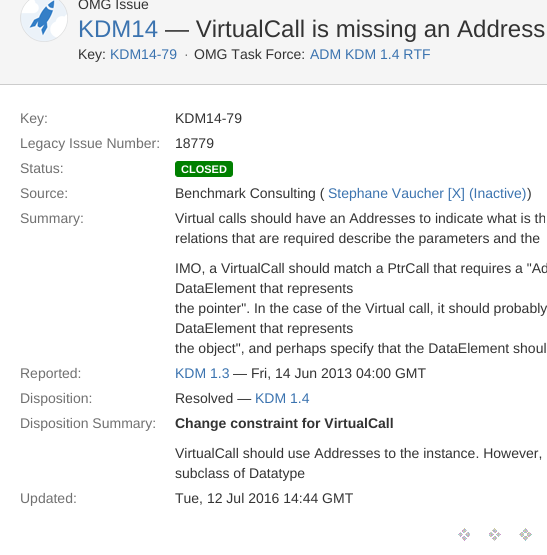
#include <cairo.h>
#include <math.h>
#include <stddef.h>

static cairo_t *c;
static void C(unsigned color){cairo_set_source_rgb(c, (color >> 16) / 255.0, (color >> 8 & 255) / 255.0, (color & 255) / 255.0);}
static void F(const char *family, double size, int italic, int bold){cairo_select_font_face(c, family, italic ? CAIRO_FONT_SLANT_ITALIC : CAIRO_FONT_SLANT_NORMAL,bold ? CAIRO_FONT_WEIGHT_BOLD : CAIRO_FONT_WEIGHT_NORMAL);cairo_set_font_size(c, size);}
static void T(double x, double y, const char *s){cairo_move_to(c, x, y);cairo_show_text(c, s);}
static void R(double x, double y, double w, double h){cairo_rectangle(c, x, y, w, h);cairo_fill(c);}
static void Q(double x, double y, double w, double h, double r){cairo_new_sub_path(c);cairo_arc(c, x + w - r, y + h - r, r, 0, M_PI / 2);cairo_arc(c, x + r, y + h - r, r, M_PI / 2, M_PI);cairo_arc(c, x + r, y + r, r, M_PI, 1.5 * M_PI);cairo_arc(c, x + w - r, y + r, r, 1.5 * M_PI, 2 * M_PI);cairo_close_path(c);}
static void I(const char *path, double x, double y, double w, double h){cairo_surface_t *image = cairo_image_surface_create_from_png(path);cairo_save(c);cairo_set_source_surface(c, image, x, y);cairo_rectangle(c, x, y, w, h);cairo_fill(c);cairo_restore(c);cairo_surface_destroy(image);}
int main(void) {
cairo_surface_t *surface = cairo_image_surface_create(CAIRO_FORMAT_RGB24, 547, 555);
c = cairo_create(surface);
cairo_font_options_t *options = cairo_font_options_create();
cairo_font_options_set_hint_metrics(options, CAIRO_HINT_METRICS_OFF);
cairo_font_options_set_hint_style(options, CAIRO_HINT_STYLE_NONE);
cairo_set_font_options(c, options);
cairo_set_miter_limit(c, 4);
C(0xf5f5f5);
cairo_paint(c);
I("1.png",20,0,48,42);
F("Liberation Sans",14,0,0);
C(0x333333);
T(78,9,"OMG Issue");
F("Liberation Sans",24,0,0);
C(0x3b73af);
T(78,37,"KDM14");
C(0x333333);
T(165,37,"— VirtualCall is missing an Address");
F("Liberation Sans",14,0,0);
T(78,59,"Key:");
C(0x3b73af);
T(110,59,"KDM14-79");
C(0x707070);
T(184,59,"·");
C(0x333333);
T(194,59,"OMG Task Force:");
C(0x3b73af);
T(310,59,"ADM KDM 1.4 RTF");
C(0xffffff);
R(0,85,547,470);
C(0xcccccc);
R(0,84,547,1);
C(0x707070);
T(20,123,"Key:");
C(0x333333);
T(175,123,"KDM14-79");
C(0x707070);
T(20,148,"Legacy Issue Number:");
C(0x333333);
T(175,148,"18779");
C(0x707070);
T(20,173,"Status:");
C(0x008000);
Q(175.5,161.5,57,15,2.5);
cairo_fill_preserve(c);
cairo_set_line_width(c,1);
cairo_stroke(c);
F("Liberation Sans",11,0,1);
C(0xffffff);
T(181,173,"CLOSED");
F("Liberation Sans",14,0,0);
C(0x707070);
T(20,198,"Source:");
C(0x333333);
T(175,198,"Benchmark Consulting (");
C(0x3b73af);
T(328,198,"Stephane Vaucher [X] (Inactive)");
C(0x333333);
T(527,198,")");
C(0x707070);
T(20,223,"Summary:");
C(0x333333);
T(175,223,"Virtual calls should have an Addresses to indicate what is th");
T(175,243,"relations that are required describe the parameters and the");
T(175,273,"IMO, a VirtualCall should match a PtrCall that requires a \"Ad");
T(175,293,"DataElement that represents");
T(175,313,"the pointer\". In the case of the Virtual call, it should probably");
T(175,333,"DataElement that represents");
T(175,353,"the object\", and perhaps specify that the DataElement shoul");
C(0x707070);
T(20,378,"Reported:");
C(0x3b73af);
T(175,378,"KDM 1.3");
C(0x333333);
T(233,378,"— Fri, 14 Jun 2013 04:00 GMT");
C(0x707070);
T(20,403,"Disposition:");
C(0x333333);
T(175,403,"Resolved —");
C(0x3b73af);
T(255,403,"KDM 1.4");
C(0x707070);
T(20,428,"Disposition Summary:");
F("Liberation Sans",14,0,1);
C(0x333333);
T(175,428,"Change constraint for VirtualCall");
F("Liberation Sans",14,0,0);
T(175,458,"VirtualCall should use Addresses to the instance. However,");
T(175,478,"subclass of Datatype");
C(0x707070);
T(20,503,"Updated:");
C(0x333333);
T(175,503,"Tue, 12 Jul 2016 14:44 GMT");
I("2.png",458,528,74,13);
cairo_surface_write_to_png(surface, "o.png");
cairo_font_options_destroy(options);
cairo_destroy(c);
cairo_surface_destroy(surface);
return 0;
}
